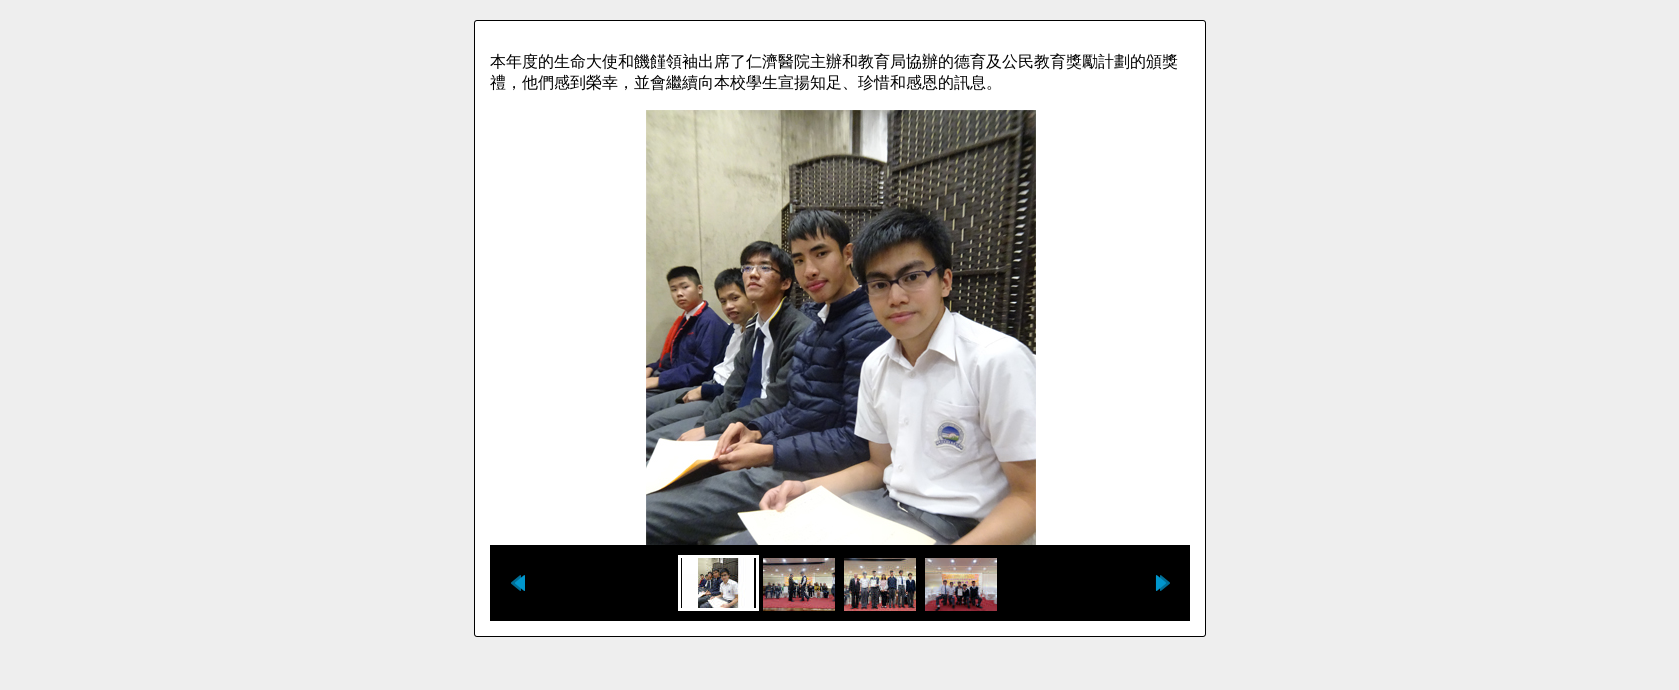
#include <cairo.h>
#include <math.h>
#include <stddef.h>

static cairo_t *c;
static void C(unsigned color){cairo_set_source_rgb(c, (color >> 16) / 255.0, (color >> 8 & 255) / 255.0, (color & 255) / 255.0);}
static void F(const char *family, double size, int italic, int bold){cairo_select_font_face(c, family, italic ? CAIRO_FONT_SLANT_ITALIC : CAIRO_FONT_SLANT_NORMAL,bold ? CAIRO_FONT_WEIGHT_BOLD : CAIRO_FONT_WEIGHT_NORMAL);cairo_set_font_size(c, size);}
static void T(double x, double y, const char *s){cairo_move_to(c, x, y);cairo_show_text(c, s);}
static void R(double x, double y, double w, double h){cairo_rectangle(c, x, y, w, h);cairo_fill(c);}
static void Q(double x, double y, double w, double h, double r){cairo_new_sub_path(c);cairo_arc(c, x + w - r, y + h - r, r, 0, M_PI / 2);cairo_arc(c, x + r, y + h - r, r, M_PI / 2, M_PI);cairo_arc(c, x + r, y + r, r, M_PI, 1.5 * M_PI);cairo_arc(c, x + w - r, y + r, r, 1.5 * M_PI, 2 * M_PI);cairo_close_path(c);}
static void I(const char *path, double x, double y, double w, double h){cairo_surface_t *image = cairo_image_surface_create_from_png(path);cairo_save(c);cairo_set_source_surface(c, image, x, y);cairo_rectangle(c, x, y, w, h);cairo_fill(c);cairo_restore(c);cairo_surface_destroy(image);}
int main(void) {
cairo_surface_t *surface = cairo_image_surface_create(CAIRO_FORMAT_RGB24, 1679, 690);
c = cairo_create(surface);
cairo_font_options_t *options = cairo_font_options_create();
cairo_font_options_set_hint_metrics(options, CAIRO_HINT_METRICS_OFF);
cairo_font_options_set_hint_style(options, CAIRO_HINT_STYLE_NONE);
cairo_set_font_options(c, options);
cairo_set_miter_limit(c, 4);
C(0xeeeeee);
cairo_paint(c);
C(0xffffff);
Q(474.5,20.5,731,616,2.5);
cairo_fill_preserve(c);
C(0x000000);
cairo_set_line_width(c,1);
cairo_stroke(c);
F("WenQuanYi Zen Hei Medium",16,0,0);
T(490,67,"本年度的生命大使和饑饉領袖出席了仁濟醫院主辦和教育局協辦的德育及公民教育獎勵計劃的頒獎");
T(490,88,"禮，他們感到榮幸，並會繼續向本校學生宣揚知足、珍惜和感恩的訊息。");
I("1.png",646,110,390,435);
R(490,545,700,76);
I("2.png",511,575,14,16);
cairo_rectangle(c,679.5,556.5,78,53);
C(0xffffff);
cairo_set_line_width(c,3);
cairo_stroke(c);
I("3.png",682,558,72,50);
I("4.png",763,558,72,53);
I("5.png",844,558,72,53);
I("6.png",925,558,72,53);
I("7.png",1155,575,15,16);
cairo_surface_write_to_png(surface, "o.png");
cairo_font_options_destroy(options);
cairo_destroy(c);
cairo_surface_destroy(surface);
return 0;
}
